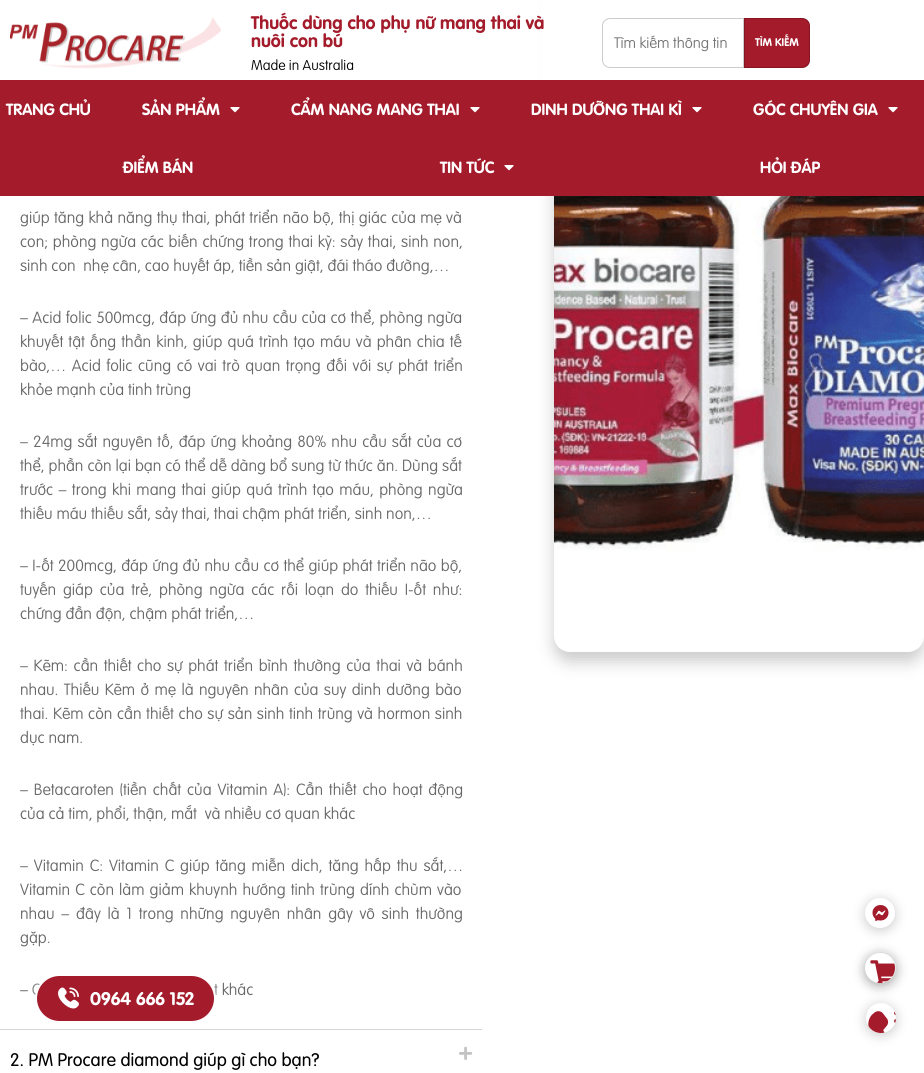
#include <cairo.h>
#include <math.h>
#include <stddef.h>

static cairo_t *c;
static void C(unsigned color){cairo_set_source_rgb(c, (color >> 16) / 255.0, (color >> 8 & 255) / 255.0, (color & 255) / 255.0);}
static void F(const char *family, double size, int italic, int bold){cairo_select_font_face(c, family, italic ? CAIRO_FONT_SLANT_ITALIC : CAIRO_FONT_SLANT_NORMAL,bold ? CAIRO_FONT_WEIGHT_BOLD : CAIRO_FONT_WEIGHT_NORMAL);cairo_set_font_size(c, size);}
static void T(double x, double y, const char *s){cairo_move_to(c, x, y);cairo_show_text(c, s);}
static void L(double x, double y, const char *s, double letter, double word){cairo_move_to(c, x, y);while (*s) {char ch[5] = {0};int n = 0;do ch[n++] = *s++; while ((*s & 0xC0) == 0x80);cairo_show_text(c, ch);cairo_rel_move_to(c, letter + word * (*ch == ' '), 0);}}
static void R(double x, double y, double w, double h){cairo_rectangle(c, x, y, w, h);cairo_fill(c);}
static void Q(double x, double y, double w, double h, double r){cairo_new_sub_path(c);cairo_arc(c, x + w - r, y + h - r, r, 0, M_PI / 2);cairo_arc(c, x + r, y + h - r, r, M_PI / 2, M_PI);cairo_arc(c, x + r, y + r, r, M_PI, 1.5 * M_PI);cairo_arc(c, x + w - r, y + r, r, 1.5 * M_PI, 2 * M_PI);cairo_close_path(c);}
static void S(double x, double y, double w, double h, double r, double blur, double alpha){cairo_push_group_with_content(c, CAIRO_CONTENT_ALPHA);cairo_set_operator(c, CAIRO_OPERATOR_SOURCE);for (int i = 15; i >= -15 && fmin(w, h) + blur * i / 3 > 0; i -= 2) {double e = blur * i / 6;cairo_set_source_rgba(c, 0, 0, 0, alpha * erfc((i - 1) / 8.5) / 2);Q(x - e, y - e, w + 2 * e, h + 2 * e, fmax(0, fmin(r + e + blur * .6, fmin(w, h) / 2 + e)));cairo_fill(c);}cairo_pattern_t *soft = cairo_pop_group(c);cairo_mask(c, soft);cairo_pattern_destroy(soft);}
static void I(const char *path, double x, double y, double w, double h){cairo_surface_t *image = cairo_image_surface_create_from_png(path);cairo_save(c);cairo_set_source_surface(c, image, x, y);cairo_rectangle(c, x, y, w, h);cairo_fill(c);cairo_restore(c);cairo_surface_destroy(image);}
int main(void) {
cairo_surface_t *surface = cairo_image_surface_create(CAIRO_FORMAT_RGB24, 924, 1073);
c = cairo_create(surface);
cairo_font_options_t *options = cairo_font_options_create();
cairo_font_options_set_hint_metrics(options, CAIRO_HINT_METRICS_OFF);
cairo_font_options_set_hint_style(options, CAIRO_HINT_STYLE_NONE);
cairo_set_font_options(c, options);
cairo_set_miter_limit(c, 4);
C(0xffffff);
cairo_paint(c);
C(0x000000);
S(554,-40,370,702,16,8,.2);
C(0xffffff);
R(541,0,383,80);
I("1.png",10,17,211,52);
F("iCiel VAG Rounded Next",18,0,1);
C(0xa41b2b);
T(251,29,"Thuốc dùng cho phụ nữ mang thai và");
T(251,47,"nuôi con bú");
F("iCiel VAG Rounded Next Light",14,0,0);
C(0x000000);
T(251,70,"Made in Australia");
cairo_new_path(c);
cairo_move_to(c,610,18.5);
cairo_line_to(c,743.5,18.5);
cairo_line_to(c,743.5,67.5);
cairo_line_to(c,610,67.5);
cairo_curve_to(c,606,67.5,602.5,64,602.5,60);
cairo_line_to(c,602.5,26);
cairo_curve_to(c,602.5,22,606,18.5,610,18.5);
cairo_close_path(c);
C(0xcccccc);
cairo_set_line_width(c,1);
cairo_stroke(c);
F("iCiel VAG Rounded Next Light",15,0,0);
C(0x757575);
T(614,48,"Tìm kiếm thông tin");
C(0xa41b2b);
cairo_new_path(c);
cairo_move_to(c,744,18);
cairo_line_to(c,802,18);
cairo_curve_to(c,806.5,18,810,21.5,810,26);
cairo_line_to(c,810,60);
cairo_curve_to(c,810,64.5,806.5,68,802,68);
cairo_line_to(c,744,68);
cairo_close_path(c);
cairo_fill(c);
cairo_new_path(c);
cairo_move_to(c,744.5,18.5);
cairo_line_to(c,802,18.5);
cairo_curve_to(c,806,18.5,809.5,22,809.5,26);
cairo_line_to(c,809.5,60);
cairo_curve_to(c,809.5,64,806,67.5,802,67.5);
cairo_line_to(c,744.5,67.5);
cairo_close_path(c);
cairo_set_source_rgba(c,0,0,0,0.2);
cairo_stroke(c);
F("iCiel VAG Rounded Next",11,0,1);
C(0xffffff);
T(755,46,"TÌM KIẾM");
C(0xa41b2b);
R(0,80,924,116);
F("iCiel VAG Rounded Next",16,0,1);
C(0xffffff);
T(6,115,"TRANG CHỦ");
T(142,115,"SẢN PHẨM");
I("2.png",230,107,10,6);
T(291,115,"CẨM NANG MANG THAI");
I("2.png",470,107,10,6);
T(531,115,"DINH DƯỠNG THAI KÌ");
I("2.png",692,107,10,6);
T(753,115,"GÓC CHUYÊN GIA");
I("2.png",888,107,10,6);
T(123,173,"ĐIỂM BÁN");
T(440,173,"TIN TỨC");
I("2.png",504,165,10,6);
T(760,173,"HỎI ĐÁP");
F("iCiel VAG Rounded Next Light",16,0,0);
C(0x686868);
T(20,995,"– C");
T(214,995,"t khác");
C(0xa41b2b);
Q(36,975,179,47,23.5);
cairo_fill_preserve(c);
C(0xffffff);
cairo_set_line_width(c,2);
cairo_stroke(c);
Q(32.5,971.5,186,54,27);
cairo_set_source_rgba(c,1,1,1,0.2);
cairo_set_line_width(c,5);
cairo_stroke(c);
I("3.png",58,987,21,22);
F("iCiel VAG Rounded Next",18,0,1);
C(0xffffff);
T(90,1005,"0964 666 152");
C(0xd4d4d4);
R(0,1029,482,1);
F("iCiel VAG Rounded Next Light",16,0,0);
C(0x686868);
L(20,223,"giúp tăng khả năng thụ thai, phát triển não bộ, thị giác của mẹ và",0,.5);
L(20,247,"con; phòng ngừa các biến chứng trong thai kỳ: sảy thai, sinh non,",0,.9);
T(20,271,"sinh con  nhẹ cân, cao huyết áp, tiền sản giật, đái tháo đường,…");
L(20,323,"– Acid folic 500mcg, đáp ứng đủ nhu cầu của cơ thể, phòng ngừa",0,.5);
L(20,347,"khuyết tật ống thần kinh, giúp quá trình tạo máu và phân chia tế",0,1.3);
L(20,371,"bào,… Acid folic cũng có vai trò quan trọng đối với sự phát triển",0,1.7);
T(20,395,"khỏe mạnh của tinh trùng");
L(20,447,"– 24mg sắt nguyên tố, đáp ứng khoảng 80% nhu cầu sắt của cơ",0,1.25);
L(20,471,"thể, phần còn lại bạn có thể dễ dàng bổ sung từ thức ăn. Dùng sắt",0,.1);
L(20,495,"trước – trong khi mang thai giúp quá trình tạo máu, phòng ngừa",0,1.5);
T(20,519,"thiếu máu thiếu sắt, sảy thai, thai chậm phát triển, sinh non,…");
L(20,571,"– I-ốt 200mcg, đáp ứng đủ nhu cầu cơ thể giúp phát triển não bộ,",0,.5);
L(20,595,"tuyến giáp của trẻ, phòng ngừa các rối loạn do thiếu I-ốt như:",0,3);
T(20,619,"chứng đần độn, chậm phát triển,…");
L(20,671,"– Kẽm: cần thiết cho sự phát triển bình thường của thai và bánh",0,1.75);
L(20,695,"nhau. Thiếu Kẽm ở mẹ là nguyên nhân của suy dinh dưỡng bào",0,1.5);
L(20,719,"thai. Kẽm còn cần thiết cho sự sản sinh tinh trùng và hormon sinh",0,.75);
T(20,743,"dục nam.");
L(20,795,"– Betacaroten (tiền chất của Vitamin A): Cần thiết cho hoạt động",0,2);
T(20,819,"của cả tim, phổi, thận, mắt  và nhiều cơ quan khác");
L(20,871,"– Vitamin C: Vitamin C giúp tăng miễn dich, tăng hấp thu sắt,…",0,2);
L(20,895,"Vitamin C còn làm giảm khuynh hướng tinh trùng dính chùm vào",0,1.25);
L(20,919,"nhau – đây là 1 trong những nguyên nhân gây vô sinh thường",0,2.9);
T(20,943,"gặp.");
F("iCiel VAG Rounded Next",18,0,0);
C(0x000000);
T(10,1066,"2. PM Procare diamond giúp gì cho bạn?");
I("4.png",459,1046,14,14);
I("5.png",554,196,370,456);
C(0x000000);
S(865,900,30,30,15,6,.2);
C(0xffffff);
cairo_arc(c,880,913,15,0,2 * M_PI);
cairo_fill(c);
I("6.png",872,905,17,16);
C(0x000000);
S(866,955,30,30,15,6,.2);
C(0xffffff);
cairo_arc(c,881,968,15,0,2 * M_PI);
cairo_fill(c);
C(0x000000);
S(866,1005,30,30,15,6,.2);
C(0xffffff);
cairo_arc(c,881,1018,15,0,2 * M_PI);
cairo_fill(c);
C(0x000000);
S(865,955,30,30,15,6,.2);
C(0xffffff);
cairo_arc(c,880,968,15,0,2 * M_PI);
cairo_fill(c);
I("7.png",870,960,25,23);
I("8.png",868,1011,28,22);
cairo_surface_write_to_png(surface, "o.png");
cairo_font_options_destroy(options);
cairo_destroy(c);
cairo_surface_destroy(surface);
return 0;
}
